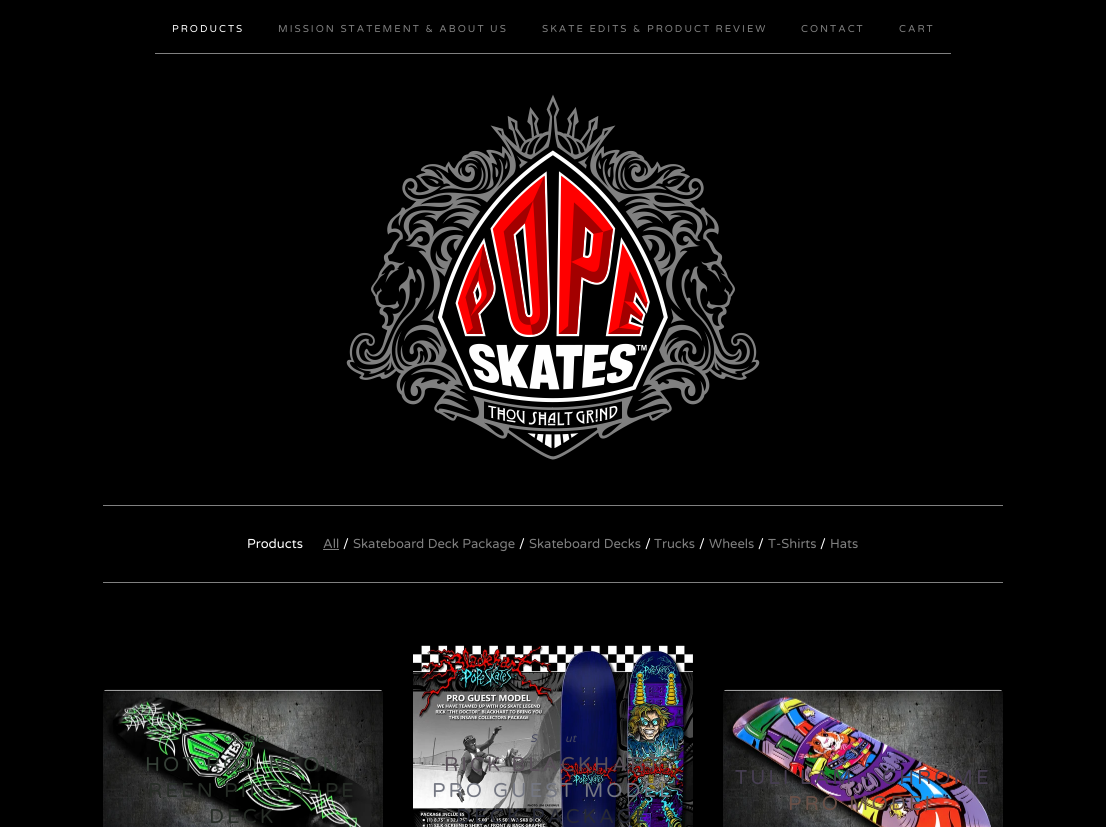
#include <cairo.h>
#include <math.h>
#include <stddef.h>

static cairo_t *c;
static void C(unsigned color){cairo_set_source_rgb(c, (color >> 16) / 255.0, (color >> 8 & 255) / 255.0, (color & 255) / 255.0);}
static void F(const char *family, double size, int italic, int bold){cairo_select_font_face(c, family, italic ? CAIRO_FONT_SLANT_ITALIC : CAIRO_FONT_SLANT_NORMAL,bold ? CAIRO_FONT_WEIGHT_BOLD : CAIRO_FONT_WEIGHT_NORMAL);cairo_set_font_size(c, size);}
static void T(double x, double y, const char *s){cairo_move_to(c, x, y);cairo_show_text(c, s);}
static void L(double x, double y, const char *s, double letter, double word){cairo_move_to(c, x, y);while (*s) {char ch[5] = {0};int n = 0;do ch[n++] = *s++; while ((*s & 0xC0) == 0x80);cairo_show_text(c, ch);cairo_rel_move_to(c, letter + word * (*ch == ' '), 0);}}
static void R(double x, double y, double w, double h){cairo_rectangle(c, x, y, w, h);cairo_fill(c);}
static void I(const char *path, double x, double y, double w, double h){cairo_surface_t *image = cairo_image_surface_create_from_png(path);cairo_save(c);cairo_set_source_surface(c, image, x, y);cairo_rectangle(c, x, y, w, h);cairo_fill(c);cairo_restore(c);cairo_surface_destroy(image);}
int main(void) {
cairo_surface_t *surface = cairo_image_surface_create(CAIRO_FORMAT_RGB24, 1106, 827);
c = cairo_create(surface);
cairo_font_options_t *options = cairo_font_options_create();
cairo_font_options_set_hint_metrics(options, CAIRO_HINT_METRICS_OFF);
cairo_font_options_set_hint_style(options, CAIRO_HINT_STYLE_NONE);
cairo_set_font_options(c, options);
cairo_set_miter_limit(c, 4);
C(0x000000);
cairo_paint(c);
C(0x808080);
R(155,53,796,1);
F("Varela Round",10,0,0);
C(0xffffff);
L(172,32,"PRODUCTS",2,0);
C(0x808080);
L(278,32,"MISSION STATEMENT & ABOUT US",2,0);
L(542,32,"SKATE EDITS & PRODUCT REVIEW",2,0);
L(801,32,"CONTACT",2,0);
L(899,32,"CART",2,0);
I("1.png",346,94,414,366);
R(103,505,900,1);
R(103,582,900,1);
F("Varela Round",13,0,0);
C(0xffffff);
T(247,548,"Products");
C(0x808080);
T(323,548,"All");
R(323,549,16,1);
C(0xffffff);
T(343,548,"/");
C(0x808080);
T(353,548,"Skateboard Deck Package");
C(0xffffff);
T(519,548,"/");
C(0x808080);
T(529,548,"Skateboard Decks");
C(0xffffff);
T(645,548,"/");
C(0x808080);
T(654,548,"Trucks");
C(0xffffff);
T(699,548,"/");
C(0x808080);
T(709,548,"Wheels");
C(0xffffff);
T(758,548,"/");
C(0x808080);
T(768,548,"T-Shirts");
C(0xffffff);
T(820,548,"/");
C(0x808080);
T(830,548,"Hats");
I("2.png",103,689,280,138);
F("Varela Round",11,1,0);
C(0x324a34);
T(223,742,"On Sale");
F("Varela Round",20,0,0);
C(0x364138);
L(145,771,"HOT ROD NEON",3,0);
C(0x272d27);
L(148,797,"REEN PINSTRIPE",3,0);
L(209,823,"DECK",3,0);
I("3.png",413,645,280,182);
F("Varela Round",11,1,0);
C(0x45475e);
T(530,742,"S");
T(565,742,"ut");
F("Varela Round",20,0,0);
C(0x595059);
L(444,771,"RICK BLACKHART",3,0);
C(0x747782);
L(432,797,"PRO GUEST MODEL",3,0);
C(0x262834);
L(456,823,"DECK PACKAGE",3,0);
I("4.png",723,689,280,138);
C(0x463e51);
L(735,784,"TULI LAM - CHROME",3,0);
C(0x695047);
L(788,810,"PRO MODEL",3,0);
cairo_surface_write_to_png(surface, "o.png");
cairo_font_options_destroy(options);
cairo_destroy(c);
cairo_surface_destroy(surface);
return 0;
}
